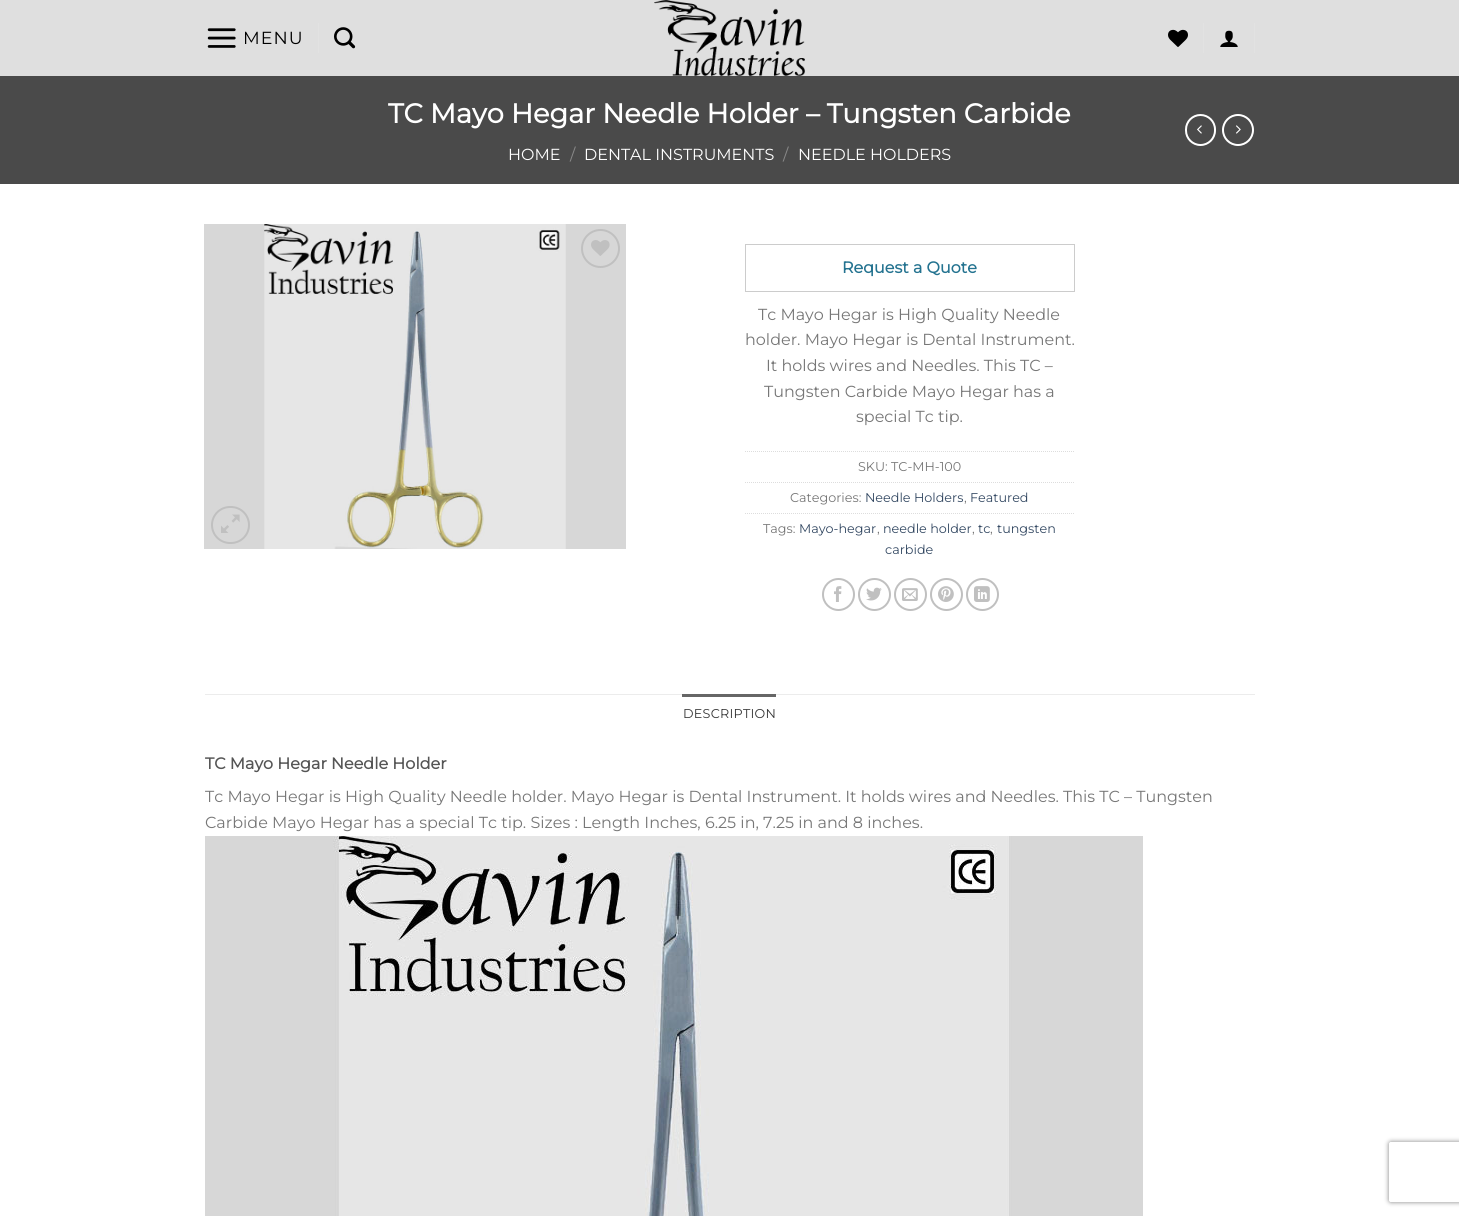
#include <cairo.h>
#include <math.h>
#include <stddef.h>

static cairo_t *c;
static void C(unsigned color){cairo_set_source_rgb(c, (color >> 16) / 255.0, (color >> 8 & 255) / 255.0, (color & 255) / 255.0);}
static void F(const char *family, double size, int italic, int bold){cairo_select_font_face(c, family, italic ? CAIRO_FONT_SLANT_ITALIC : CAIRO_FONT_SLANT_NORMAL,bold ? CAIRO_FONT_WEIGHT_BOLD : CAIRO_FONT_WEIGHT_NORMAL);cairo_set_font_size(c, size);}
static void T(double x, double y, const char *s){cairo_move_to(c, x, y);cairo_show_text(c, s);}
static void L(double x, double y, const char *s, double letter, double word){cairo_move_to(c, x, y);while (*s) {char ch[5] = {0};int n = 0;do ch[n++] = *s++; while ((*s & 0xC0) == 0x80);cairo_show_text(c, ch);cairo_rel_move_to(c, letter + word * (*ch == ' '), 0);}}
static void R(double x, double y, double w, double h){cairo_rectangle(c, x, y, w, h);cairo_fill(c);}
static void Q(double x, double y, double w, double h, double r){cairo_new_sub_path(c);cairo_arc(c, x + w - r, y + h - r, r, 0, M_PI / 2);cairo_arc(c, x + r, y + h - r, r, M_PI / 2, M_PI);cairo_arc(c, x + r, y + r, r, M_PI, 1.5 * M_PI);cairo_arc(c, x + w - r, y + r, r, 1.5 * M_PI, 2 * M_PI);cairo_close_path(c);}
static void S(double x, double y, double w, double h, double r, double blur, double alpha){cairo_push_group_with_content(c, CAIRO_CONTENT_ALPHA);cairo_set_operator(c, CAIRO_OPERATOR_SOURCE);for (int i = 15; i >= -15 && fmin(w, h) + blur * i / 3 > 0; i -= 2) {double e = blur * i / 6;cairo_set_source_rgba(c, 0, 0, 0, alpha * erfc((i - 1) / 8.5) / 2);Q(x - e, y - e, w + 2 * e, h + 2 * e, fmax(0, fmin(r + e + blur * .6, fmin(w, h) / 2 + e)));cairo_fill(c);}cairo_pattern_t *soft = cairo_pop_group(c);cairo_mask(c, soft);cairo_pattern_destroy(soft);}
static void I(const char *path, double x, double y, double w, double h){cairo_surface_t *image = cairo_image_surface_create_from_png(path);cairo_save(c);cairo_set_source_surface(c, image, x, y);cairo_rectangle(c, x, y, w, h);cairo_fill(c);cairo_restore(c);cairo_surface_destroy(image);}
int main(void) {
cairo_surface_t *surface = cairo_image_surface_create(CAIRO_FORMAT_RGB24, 1459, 1216);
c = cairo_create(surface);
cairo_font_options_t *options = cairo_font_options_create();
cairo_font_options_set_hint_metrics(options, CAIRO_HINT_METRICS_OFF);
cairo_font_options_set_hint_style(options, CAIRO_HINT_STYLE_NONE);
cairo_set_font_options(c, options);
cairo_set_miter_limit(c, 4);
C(0xffffff);
cairo_paint(c);
C(0xdfdfdf);
R(0,0,1459,76);
I("1.png",207,28,29,20);
F("Montserrat Thin",17.5,0,0);
C(0x000000);
L(243,44,"MENU",1,0);
C(0xe2e2e2);
R(318,23,1,30);
I("2.png",334,27,22,22);
I("3.png",654,0,151,76);
I("4.png",1168,29,20,18);
R(1203,23,1,30);
I("5.png",1220,30,18,17);
R(1254,23,1,30);
C(0x4a4a4a);
R(0,76,1459,108);
F("Montserrat",27.2,0,1);
C(0xffffff);
T(388,123,"TC Mayo Hegar Needle Holder – Tungsten Carbide");
F("Montserrat Thin",16,0,0);
T(508,160,"HOME");
C(0x898989);
T(570,160,"/");
C(0xffffff);
T(584,160,"DENTAL INSTRUMENTS");
C(0x898989);
T(783,160,"/");
C(0xffffff);
T(798,160,"NEEDLE HOLDERS");
Q(1186,115,29,30,14.5);
cairo_stroke(c);
I("6.png",1197,125,5,9);
cairo_arc(c,1238,130,15,0,2 * M_PI);
cairo_stroke(c);
I("7.png",1236,125,5,9);
I("8.png",204,224,422,325);
cairo_arc(c,600.5,248.5,18.5,0,2 * M_PI);
C(0xc0c0c0);
cairo_stroke(c);
I("9.png",591,240,19,16);
Q(212,507,37,36,18);
cairo_stroke(c);
I("10.png",221,514,19,19);
cairo_rectangle(c,745.5,244.5,329,47);
C(0xcccccc);
cairo_set_line_width(c,1);
cairo_stroke(c);
F("Montserrat",16,0,1);
C(0x247390);
T(842,273,"Request a Quote");
F("Montserrat Thin",16,0,0);
C(0x777777);
T(758,320,"Tc Mayo Hegar is High Quality Needle");
T(745,345,"holder. Mayo Hegar is Dental Instrument.");
T(766,371,"It holds wires and Needles. This TC –");
T(764,397,"Tungsten Carbide Mayo Hegar has a");
T(856,422,"special Tc tip.");
cairo_new_path(c);
cairo_move_to(c,745,451.5);
cairo_line_to(c,1075,451.5);
C(0xdddddd);
cairo_set_dash(c,(double[]){1,1},2,0);
cairo_stroke(c);
F("Montserrat Thin",12.75,0,0);
C(0x777777);
T(858,471,"SKU: TC-MH-100");
cairo_new_path(c);
cairo_move_to(c,745,482.5);
cairo_line_to(c,1075,482.5);
C(0xdddddd);
cairo_stroke(c);
C(0x777777);
T(790,502,"Categories:");
C(0x334862);
T(865,502,"Needle Holders");
C(0x777777);
T(964,502,",");
C(0x334862);
T(970,502,"Featured");
cairo_new_path(c);
cairo_move_to(c,745,513.5);
cairo_line_to(c,1075,513.5);
C(0xdddddd);
cairo_stroke(c);
C(0x777777);
T(763,533,"Tags:");
C(0x334862);
T(799,533,"Mayo-hegar");
C(0x777777);
T(877,533,",");
C(0x334862);
T(883,533,"needle holder");
C(0x777777);
T(972,533,",");
C(0x334862);
T(978,533,"tc");
C(0x777777);
T(990,533,",");
C(0x334862);
T(997,533,"tungsten");
T(885,554,"carbide");
cairo_new_path(c);
cairo_arc(c,838.5,594.5,15.5,0,2 * M_PI);
C(0xc0c0c0);
cairo_set_line_width(c,2);
cairo_set_dash(c,NULL,0,0);
cairo_stroke(c);
I("11.png",834,586,8,16);
cairo_arc(c,874.5,594.5,15.5,0,2 * M_PI);
cairo_stroke(c);
I("12.png",866,587,16,14);
cairo_arc(c,910.5,594.5,15.5,0,2 * M_PI);
cairo_stroke(c);
I("13.png",902,588,16,13);
cairo_arc(c,946.5,594.5,15.5,0,2 * M_PI);
cairo_stroke(c);
I("14.png",938,586,16,16);
cairo_arc(c,982.5,594.5,15.5,0,2 * M_PI);
cairo_stroke(c);
I("15.png",974,586,16,16);
C(0xececec);
R(205,694,1050,1);
C(0x666666);
R(682,694,94,3);
C(0x363636);
L(683,718,"DESCRIPTION",.25,0);
F("Montserrat",16,0,1);
C(0x555555);
T(205,769,"TC Mayo Hegar Needle Holder");
F("Montserrat Thin",16,0,0);
C(0x777777);
T(205,802,"Tc Mayo Hegar is High Quality Needle holder. Mayo Hegar is Dental Instrument. It holds wires and Needles. This TC – Tungsten");
T(205,828,"Carbide Mayo Hegar has a special Tc tip. Sizes : Length Inches, 6.25 in, 7.25 in and 8 inches.");
I("16.png",205,836,938,380);
cairo_save(c);
cairo_set_fill_rule(c,CAIRO_FILL_RULE_EVEN_ODD);
cairo_new_path(c);
cairo_move_to(c,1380,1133);
cairo_line_to(c,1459,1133);
cairo_line_to(c,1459,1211);
cairo_line_to(c,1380,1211);
cairo_close_path(c);
cairo_move_to(c,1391,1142);
cairo_line_to(c,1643,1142);
cairo_curve_to(c,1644,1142,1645,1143,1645,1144);
cairo_line_to(c,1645,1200);
cairo_curve_to(c,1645,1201,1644,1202,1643,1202);
cairo_line_to(c,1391,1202);
cairo_curve_to(c,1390,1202,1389,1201,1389,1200);
cairo_line_to(c,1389,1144);
cairo_curve_to(c,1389,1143,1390,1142,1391,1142);
cairo_close_path(c);
cairo_clip(c);
C(0x808080);
S(1389,1142,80,60,2,2.5,1);
cairo_restore(c);
cairo_surface_write_to_png(surface, "o.png");
cairo_font_options_destroy(options);
cairo_destroy(c);
cairo_surface_destroy(surface);
return 0;
}
